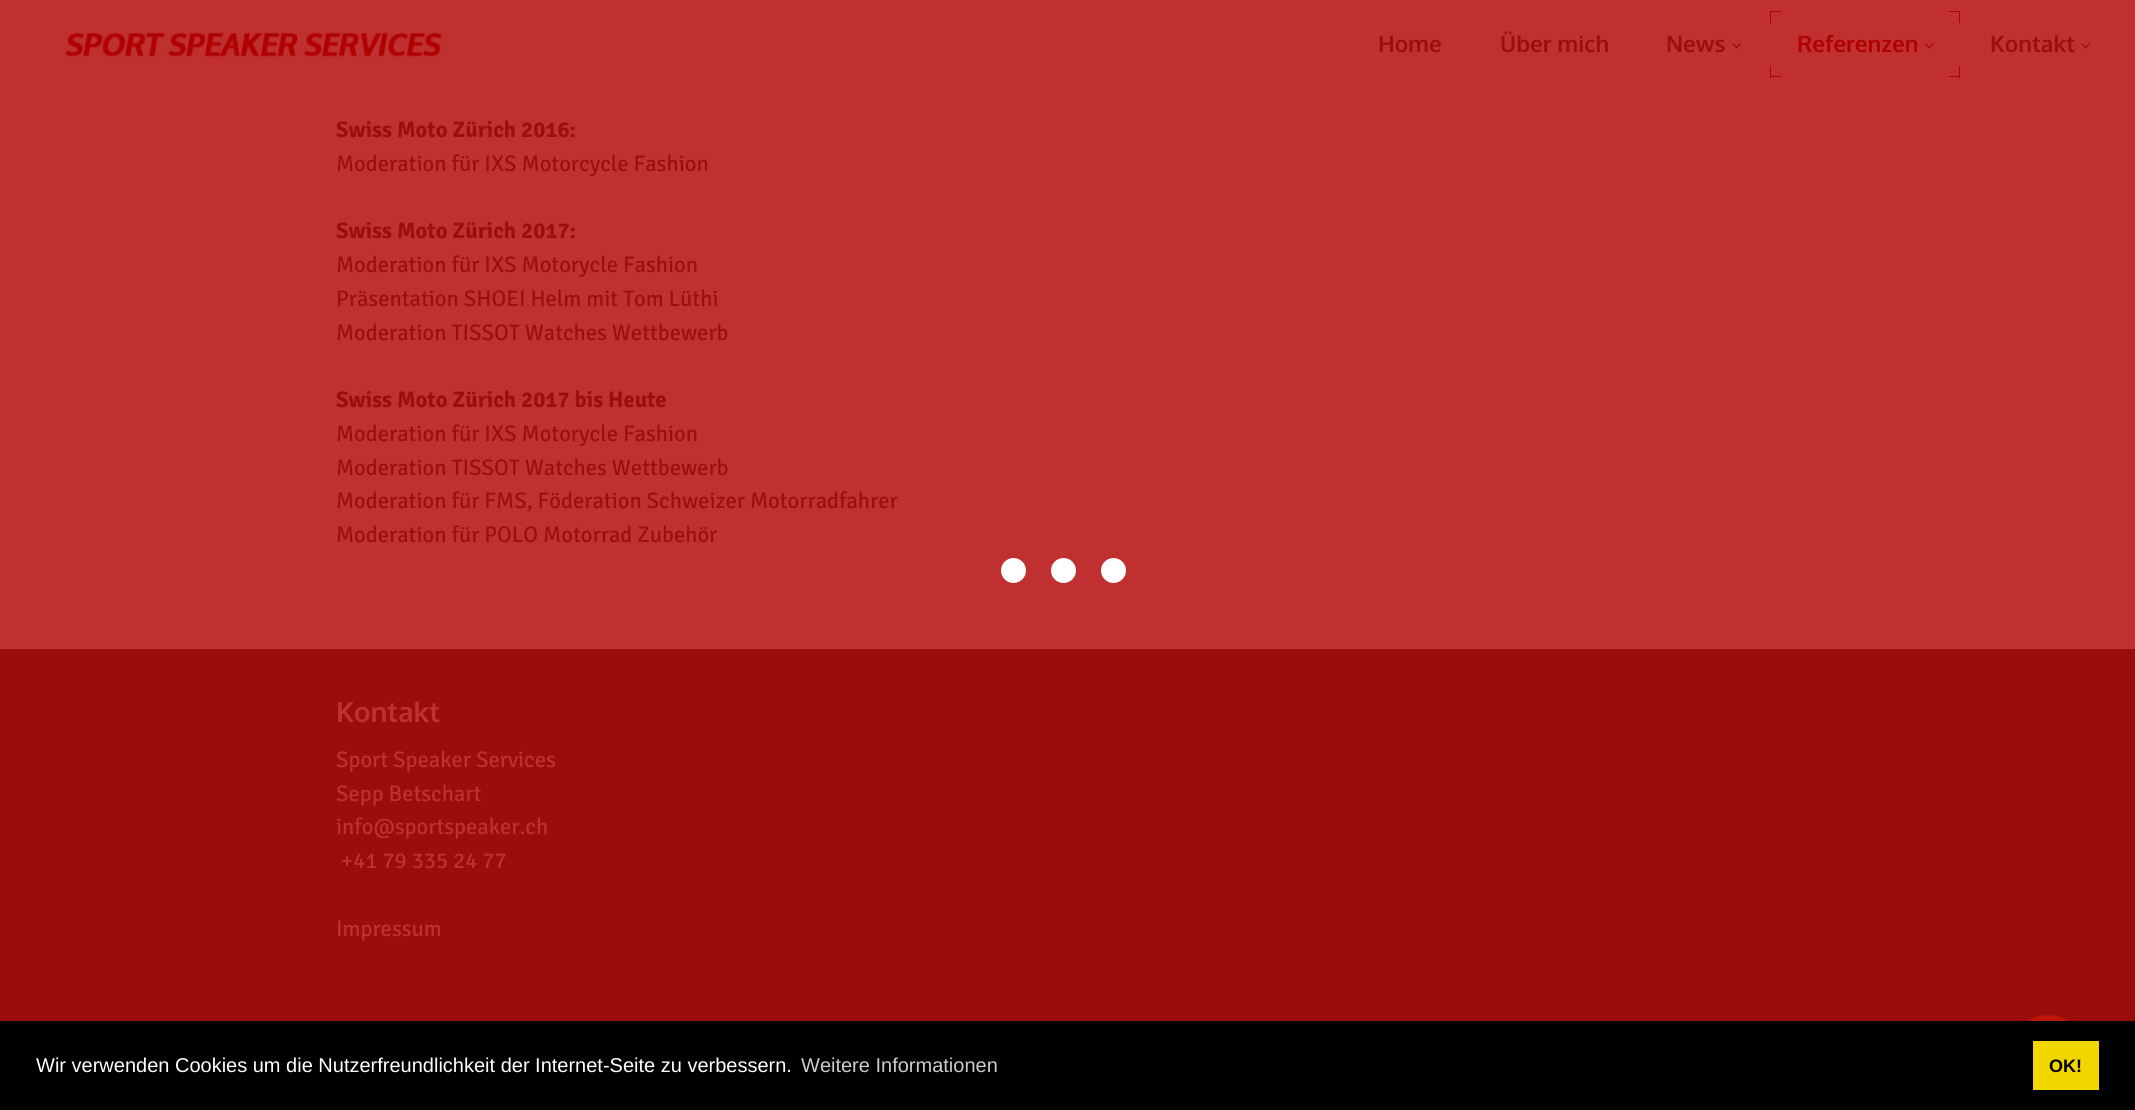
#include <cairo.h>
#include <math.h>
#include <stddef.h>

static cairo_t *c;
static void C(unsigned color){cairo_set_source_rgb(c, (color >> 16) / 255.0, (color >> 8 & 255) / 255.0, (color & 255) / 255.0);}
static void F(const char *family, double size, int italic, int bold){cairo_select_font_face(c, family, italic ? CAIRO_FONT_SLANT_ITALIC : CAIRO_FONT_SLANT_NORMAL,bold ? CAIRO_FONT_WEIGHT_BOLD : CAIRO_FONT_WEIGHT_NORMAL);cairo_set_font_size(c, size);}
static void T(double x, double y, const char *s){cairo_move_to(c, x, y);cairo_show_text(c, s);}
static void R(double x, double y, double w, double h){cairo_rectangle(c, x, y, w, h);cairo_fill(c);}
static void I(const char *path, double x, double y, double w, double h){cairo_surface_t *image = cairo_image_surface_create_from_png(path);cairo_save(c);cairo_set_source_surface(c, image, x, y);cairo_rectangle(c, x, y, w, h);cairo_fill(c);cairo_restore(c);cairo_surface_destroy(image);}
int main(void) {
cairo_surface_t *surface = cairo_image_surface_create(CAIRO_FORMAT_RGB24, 2135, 1110);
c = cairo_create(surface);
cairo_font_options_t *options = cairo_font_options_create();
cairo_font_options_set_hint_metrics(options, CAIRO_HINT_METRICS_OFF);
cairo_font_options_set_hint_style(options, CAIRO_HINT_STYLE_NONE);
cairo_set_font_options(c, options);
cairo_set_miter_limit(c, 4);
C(0xc03030);
cairo_paint(c);
I("1.png",62,31,384,29);
F("Oxygen",22.5,0,1);
C(0x9c0d0d);
T(1378,52,"Home");
T(1500,52,"Über mich");
T(1666,52,"News");
cairo_new_path(c);
cairo_move_to(c,1740,43);
cairo_line_to(c,1741,44);
cairo_line_to(c,1736.5,48.5);
cairo_line_to(c,1735.5,47.5);
cairo_close_path(c);
cairo_fill(c);
cairo_new_path(c);
cairo_move_to(c,1733,43);
cairo_line_to(c,1737.5,47.5);
cairo_line_to(c,1736.5,48.5);
cairo_line_to(c,1732,44);
cairo_close_path(c);
cairo_fill(c);
C(0xb10000);
R(1770,11,11,1);
R(1770,11,1,12);
R(1949,11,11,1);
R(1959,11,1,12);
T(1797,52,"Referenzen");
cairo_new_path(c);
cairo_move_to(c,1933,43);
cairo_line_to(c,1933.5,44);
cairo_line_to(c,1929.5,48.5);
cairo_line_to(c,1928.5,47.5);
cairo_close_path(c);
cairo_fill(c);
cairo_new_path(c);
cairo_move_to(c,1925.5,43);
cairo_line_to(c,1930,47.5);
cairo_line_to(c,1929.5,48.5);
cairo_line_to(c,1925,44);
cairo_close_path(c);
cairo_fill(c);
R(1770,76,11,1);
R(1770,66,1,12);
R(1959,66,1,12);
R(1949,76,11,1);
C(0x9c0d0d);
T(1990,52,"Kontakt");
cairo_new_path(c);
cairo_move_to(c,2089,43);
cairo_line_to(c,2090,44);
cairo_line_to(c,2085.5,48.5);
cairo_line_to(c,2084.5,47.5);
cairo_close_path(c);
cairo_fill(c);
cairo_new_path(c);
cairo_move_to(c,2082,43);
cairo_line_to(c,2086.5,47.5);
cairo_line_to(c,2085.5,48.5);
cairo_line_to(c,2081,44);
cairo_close_path(c);
cairo_fill(c);
F("Signika Negative",22.5,0,1);
T(336,137,"Swiss Moto Zürich 2016:");
F("Signika Negative",22.5,0,0);
T(336,171,"Moderation für IXS Motorcycle Fashion");
F("Signika Negative",22.5,0,1);
T(336,238,"Swiss Moto Zürich 2017:");
F("Signika Negative",22.5,0,0);
T(336,272,"Moderation für IXS Motorycle Fashion");
T(336,306,"Präsentation SHOEI Helm mit Tom Lüthi");
T(336,340,"Moderation TISSOT Watches Wettbewerb");
F("Signika Negative",22.5,0,1);
T(336,407,"Swiss Moto Zürich 2017 bis Heute");
F("Signika Negative",22.5,0,0);
T(336,441,"Moderation für IXS Motorycle Fashion");
T(336,475,"Moderation TISSOT Watches Wettbewerb");
T(336,508,"Moderation für FMS, Föderation Schweizer Motorradfahrer");
T(336,542,"Moderation für POLO Motorrad Zubehör");
C(0x9b0c0c);
R(0,649,2135,372);
F("Oxygen",27.5,0,1);
C(0xc03030);
T(336,722,"Kontakt");
F("Signika Negative",22.5,0,0);
T(336,767,"Sport Speaker Services");
T(336,801,"Sepp Betschart");
T(336,834,"info@sportspeaker.ch");
T(341,868,"+41 79 335 24 77");
T(336,936,"Impressum");
C(0xc01509);
cairo_new_path(c);
cairo_arc(c,2048,1050,35,0,2 * M_PI);
cairo_fill(c);
C(0xffffff);
cairo_arc(c,1013.5,570.5,12.5,0,2 * M_PI);
cairo_fill(c);
cairo_arc(c,1063.5,570.5,12.5,0,2 * M_PI);
cairo_fill(c);
cairo_arc(c,1113.5,570.5,12.5,0,2 * M_PI);
cairo_fill(c);
C(0x000000);
R(0,1021,2135,89);
F("Liberation Sans",20,0,0);
C(0xffffff);
T(36,1072,"Wir verwenden Cookies um die Nutzerfreundlichkeit der Internet-Seite zu verbessern.");
C(0xcccccc);
T(801,1072,"Weitere Informationen");
C(0xf1d600);
R(2033,1041,66,49);
F("Liberation Sans",18,0,1);
C(0x000000);
T(2049,1072,"OK!");
cairo_surface_write_to_png(surface, "o.png");
cairo_font_options_destroy(options);
cairo_destroy(c);
cairo_surface_destroy(surface);
return 0;
}
